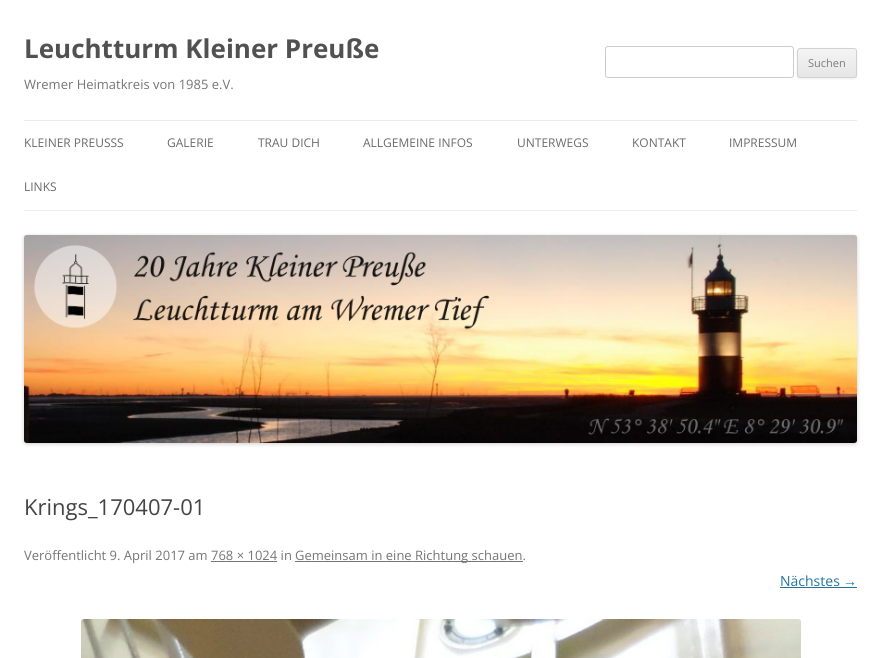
#include <cairo.h>
#include <math.h>
#include <stddef.h>

static cairo_t *c;
static void C(unsigned color){cairo_set_source_rgb(c, (color >> 16) / 255.0, (color >> 8 & 255) / 255.0, (color & 255) / 255.0);}
static void F(const char *family, double size, int italic, int bold){cairo_select_font_face(c, family, italic ? CAIRO_FONT_SLANT_ITALIC : CAIRO_FONT_SLANT_NORMAL,bold ? CAIRO_FONT_WEIGHT_BOLD : CAIRO_FONT_WEIGHT_NORMAL);cairo_set_font_size(c, size);}
static void T(double x, double y, const char *s){cairo_move_to(c, x, y);cairo_show_text(c, s);}
static void R(double x, double y, double w, double h){cairo_rectangle(c, x, y, w, h);cairo_fill(c);}
static void Q(double x, double y, double w, double h, double r){cairo_new_sub_path(c);cairo_arc(c, x + w - r, y + h - r, r, 0, M_PI / 2);cairo_arc(c, x + r, y + h - r, r, M_PI / 2, M_PI);cairo_arc(c, x + r, y + r, r, M_PI, 1.5 * M_PI);cairo_arc(c, x + w - r, y + r, r, 1.5 * M_PI, 2 * M_PI);cairo_close_path(c);}
static void S(double x, double y, double w, double h, double r, double blur, double alpha){cairo_push_group_with_content(c, CAIRO_CONTENT_ALPHA);cairo_set_operator(c, CAIRO_OPERATOR_SOURCE);for (int i = 15; i >= -15 && fmin(w, h) + blur * i / 3 > 0; i -= 2) {double e = blur * i / 6;cairo_set_source_rgba(c, 0, 0, 0, alpha * erfc((i - 1) / 8.5) / 2);Q(x - e, y - e, w + 2 * e, h + 2 * e, fmax(0, fmin(r + e + blur * .6, fmin(w, h) / 2 + e)));cairo_fill(c);}cairo_pattern_t *soft = cairo_pop_group(c);cairo_mask(c, soft);cairo_pattern_destroy(soft);}
static void I(const char *path, double x, double y, double w, double h){cairo_surface_t *image = cairo_image_surface_create_from_png(path);cairo_save(c);cairo_set_source_surface(c, image, x, y);cairo_rectangle(c, x, y, w, h);cairo_fill(c);cairo_restore(c);cairo_surface_destroy(image);}
int main(void) {
cairo_surface_t *surface = cairo_image_surface_create(CAIRO_FORMAT_RGB24, 881, 658);
c = cairo_create(surface);
cairo_font_options_t *options = cairo_font_options_create();
cairo_font_options_set_hint_metrics(options, CAIRO_HINT_METRICS_OFF);
cairo_font_options_set_hint_style(options, CAIRO_HINT_STYLE_NONE);
cairo_set_font_options(c, options);
cairo_set_miter_limit(c, 4);
cairo_pattern_t *gradient;
C(0xffffff);
cairo_paint(c);
F("Open Sans",26,0,1);
C(0x515151);
T(24,58,"Leuchtturm Kleiner Preuße");
F("Open Sans",13,0,0);
C(0x757575);
T(24,89,"Wremer Heimatkreis von 1985 e.V.");
Q(605.5,46.5,188,31,2.5);
C(0xcccccc);
cairo_set_line_width(c,1);
cairo_stroke(c);
C(0x404040);
S(797,49,60,30,3,1,.1);
cairo_save(c);
Q(797,48,60,30,3);
cairo_clip(c);
gradient = cairo_pattern_create_linear(827,49,827,77);
cairo_pattern_add_color_stop_rgba(gradient,0,0.957,0.957,0.957,1);
cairo_pattern_add_color_stop_rgba(gradient,1,0.902,0.902,0.902,1);
cairo_set_source(c,gradient);
cairo_pattern_destroy(gradient);
R(797,49,60,28);
cairo_restore(c);
Q(797.5,48.5,59,29,2.5);
C(0xd2d2d2);
cairo_stroke(c);
F("Open Sans",11,0,0);
C(0x7c7c7c);
T(808,67,"Suchen");
C(0xededed);
R(24,120,833,1);
R(24,210,833,1);
F("Open Sans",12,0,0);
C(0x6a6a6a);
T(24,147,"KLEINER PREUSSS");
T(167,147,"GALERIE");
T(258,147,"TRAU DICH");
T(363,147,"ALLGEMEINE INFOS");
T(517,147,"UNTERWEGS");
T(632,147,"KONTAKT");
T(729,147,"IMPRESSUM");
T(24,191,"LINKS");
C(0x000000);
S(24,236,833,208,3,2,.2);
I("1.png",24,235,833,208);
F("Open Sans",22,0,0);
C(0x444444);
T(24,515,"Krings_170407-01");
F("Open Sans",13,0,0);
C(0x757575);
T(24,560,"Veröffentlicht 9. April 2017 am 768 × 1024 in");
R(295,561,228,1);
T(295,560,"Gemeinsam in eine Richtung schauen.");
R(211,561,66,1);
F("Open Sans",14,0,0);
C(0x21759b);
T(780,586,"Nächstes");
F("Liberation Sans",14,0,0);
T(843,586,"→");
R(780,587,77,1);
I("2.png",81,619,720,39);
cairo_surface_write_to_png(surface, "o.png");
cairo_font_options_destroy(options);
cairo_destroy(c);
cairo_surface_destroy(surface);
return 0;
}
